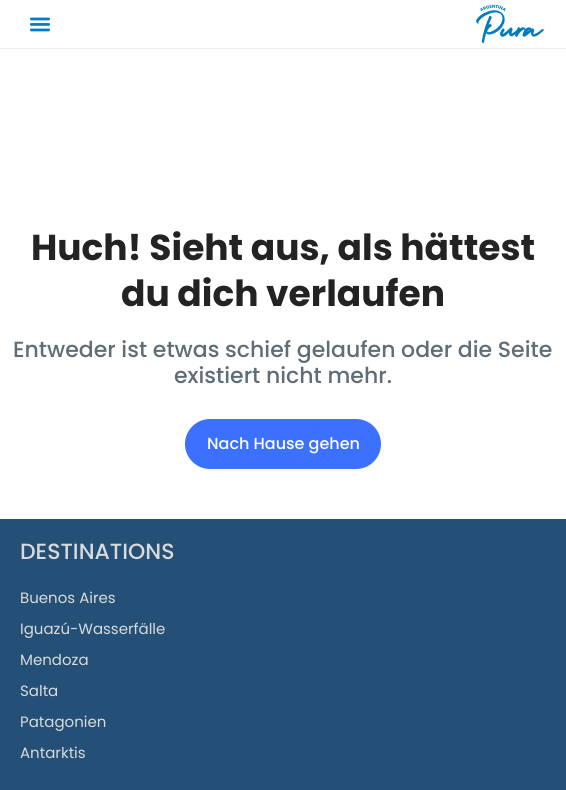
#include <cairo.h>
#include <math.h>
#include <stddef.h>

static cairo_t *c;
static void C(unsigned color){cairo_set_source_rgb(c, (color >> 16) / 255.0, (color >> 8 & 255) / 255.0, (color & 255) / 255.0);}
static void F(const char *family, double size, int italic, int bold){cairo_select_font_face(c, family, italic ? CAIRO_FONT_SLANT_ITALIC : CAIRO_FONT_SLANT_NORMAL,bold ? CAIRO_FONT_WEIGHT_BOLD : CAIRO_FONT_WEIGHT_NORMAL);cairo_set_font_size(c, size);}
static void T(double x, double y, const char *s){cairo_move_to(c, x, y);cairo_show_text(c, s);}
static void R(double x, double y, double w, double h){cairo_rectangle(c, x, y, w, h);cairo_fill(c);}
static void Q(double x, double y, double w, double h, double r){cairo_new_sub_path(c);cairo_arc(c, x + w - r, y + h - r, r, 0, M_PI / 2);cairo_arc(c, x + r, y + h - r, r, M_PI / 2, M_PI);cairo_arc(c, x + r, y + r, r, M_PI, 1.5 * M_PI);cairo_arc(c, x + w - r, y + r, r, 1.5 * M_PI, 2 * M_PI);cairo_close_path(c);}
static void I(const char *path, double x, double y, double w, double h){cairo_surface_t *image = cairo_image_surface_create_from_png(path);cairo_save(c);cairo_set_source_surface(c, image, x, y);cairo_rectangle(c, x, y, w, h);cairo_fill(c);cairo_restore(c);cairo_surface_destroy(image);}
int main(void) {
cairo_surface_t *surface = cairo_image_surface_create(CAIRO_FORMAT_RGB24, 566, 790);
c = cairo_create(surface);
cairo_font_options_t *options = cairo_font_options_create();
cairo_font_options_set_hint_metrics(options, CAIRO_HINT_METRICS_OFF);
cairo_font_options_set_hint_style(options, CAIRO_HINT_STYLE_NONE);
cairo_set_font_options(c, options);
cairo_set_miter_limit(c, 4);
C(0xffffff);
cairo_paint(c);
C(0xecf0f4);
R(0,48,566,1);
I("1.png",29,17,22,15);
I("2.png",476,4,68,40);
F("Poppins",36,0,1);
C(0x232323);
T(31,260,"Huch! Sieht aus, als hättest");
T(121,306,"du dich verlaufen");
F("Poppins Medium",22,0,0);
C(0x5e6d77);
T(13,357,"Entweder ist etwas schief gelaufen oder die Seite");
T(174,383,"existiert nicht mehr.");
C(0x3b71fe);
Q(185,419,196,50,25);
cairo_fill(c);
F("Poppins Medium",16,0,0);
C(0xffffff);
T(207,449,"Nach Hause gehen");
C(0x245077);
R(0,519,566,271);
F("Poppins Medium",22,0,0);
C(0xdadada);
T(20,559,"DESTINATIONS");
F("Poppins",15,0,0);
T(20,603,"Buenos Aires");
T(20,634,"Iguazú-Wasserfälle");
T(20,665,"Mendoza");
T(20,696,"Salta");
T(20,727,"Patagonien");
T(20,758,"Antarktis");
cairo_surface_write_to_png(surface, "o.png");
cairo_font_options_destroy(options);
cairo_destroy(c);
cairo_surface_destroy(surface);
return 0;
}
